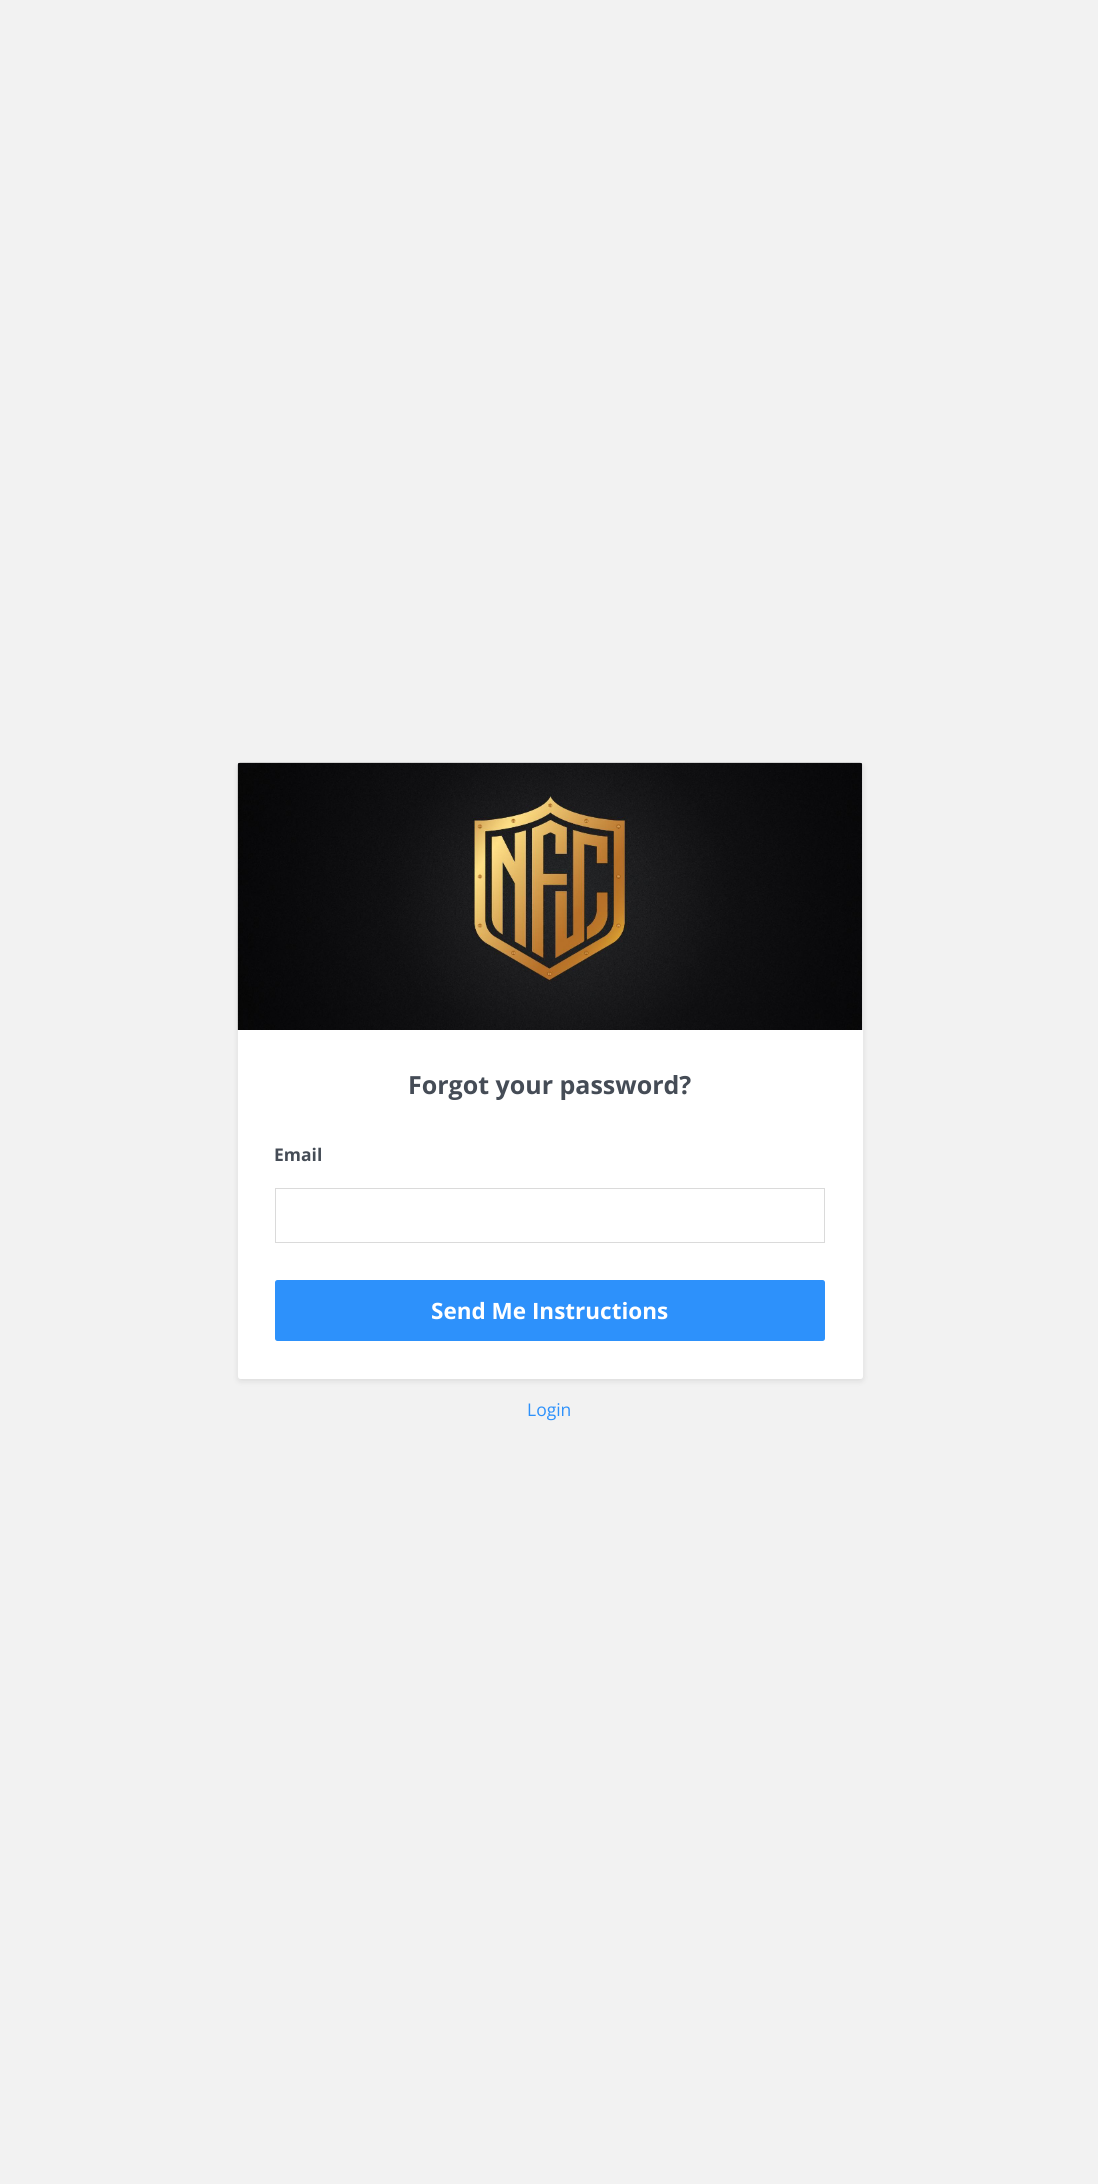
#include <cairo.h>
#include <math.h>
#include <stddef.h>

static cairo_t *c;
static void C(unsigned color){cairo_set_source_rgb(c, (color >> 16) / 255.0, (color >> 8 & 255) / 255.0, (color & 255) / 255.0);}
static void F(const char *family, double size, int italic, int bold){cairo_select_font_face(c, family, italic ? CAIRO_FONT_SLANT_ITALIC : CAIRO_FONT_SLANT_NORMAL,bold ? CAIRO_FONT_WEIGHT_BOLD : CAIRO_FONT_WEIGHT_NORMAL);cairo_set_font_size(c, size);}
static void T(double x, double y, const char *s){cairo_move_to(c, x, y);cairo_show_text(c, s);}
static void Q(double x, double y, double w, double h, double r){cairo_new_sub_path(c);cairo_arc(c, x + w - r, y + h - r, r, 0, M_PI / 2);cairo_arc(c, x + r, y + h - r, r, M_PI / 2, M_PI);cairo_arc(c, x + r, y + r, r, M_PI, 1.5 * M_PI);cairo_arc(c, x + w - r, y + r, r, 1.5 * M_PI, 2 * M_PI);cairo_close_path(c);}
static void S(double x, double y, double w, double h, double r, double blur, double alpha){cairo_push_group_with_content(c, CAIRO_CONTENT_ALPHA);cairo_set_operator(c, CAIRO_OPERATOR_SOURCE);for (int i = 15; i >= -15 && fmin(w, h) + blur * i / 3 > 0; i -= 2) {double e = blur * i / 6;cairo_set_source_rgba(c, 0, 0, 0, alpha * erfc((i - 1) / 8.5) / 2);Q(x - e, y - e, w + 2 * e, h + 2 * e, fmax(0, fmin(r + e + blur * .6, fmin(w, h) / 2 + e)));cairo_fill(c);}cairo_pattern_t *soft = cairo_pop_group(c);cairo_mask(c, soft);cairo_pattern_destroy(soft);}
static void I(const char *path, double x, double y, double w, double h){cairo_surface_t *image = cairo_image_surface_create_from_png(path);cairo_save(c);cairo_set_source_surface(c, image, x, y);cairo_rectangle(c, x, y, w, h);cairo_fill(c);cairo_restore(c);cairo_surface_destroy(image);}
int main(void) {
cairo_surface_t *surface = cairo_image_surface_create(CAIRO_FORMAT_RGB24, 1098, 2184);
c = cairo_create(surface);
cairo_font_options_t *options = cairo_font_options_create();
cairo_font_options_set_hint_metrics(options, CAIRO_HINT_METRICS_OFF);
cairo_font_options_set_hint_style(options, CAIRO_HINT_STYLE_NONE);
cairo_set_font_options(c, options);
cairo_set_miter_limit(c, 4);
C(0xf2f2f2);
cairo_paint(c);
C(0x000000);
S(238,765,625,616,2.5,3,.1);
C(0xffffff);
Q(238,763,625,616,2.5);
cairo_fill(c);
I("1.png",237,762,626,268);
F("Open Sans",25,0,1);
C(0x454c56);
T(408,1094,"Forgot your password?");
F("Open Sans",17.5,0,1);
T(274,1161,"Email");
cairo_rectangle(c,275.5,1188.5,549,54);
C(0xdadada);
cairo_set_line_width(c,1);
cairo_stroke(c);
C(0x2d91fb);
Q(275,1280,550,61,2.5);
cairo_fill(c);
F("Open Sans",22.5,0,1);
C(0xffffff);
T(431,1319,"Send Me Instructions");
F("Open Sans",17.5,0,0);
C(0x2d91fb);
T(527,1416,"Login");
cairo_surface_write_to_png(surface, "o.png");
cairo_font_options_destroy(options);
cairo_destroy(c);
cairo_surface_destroy(surface);
return 0;
}
